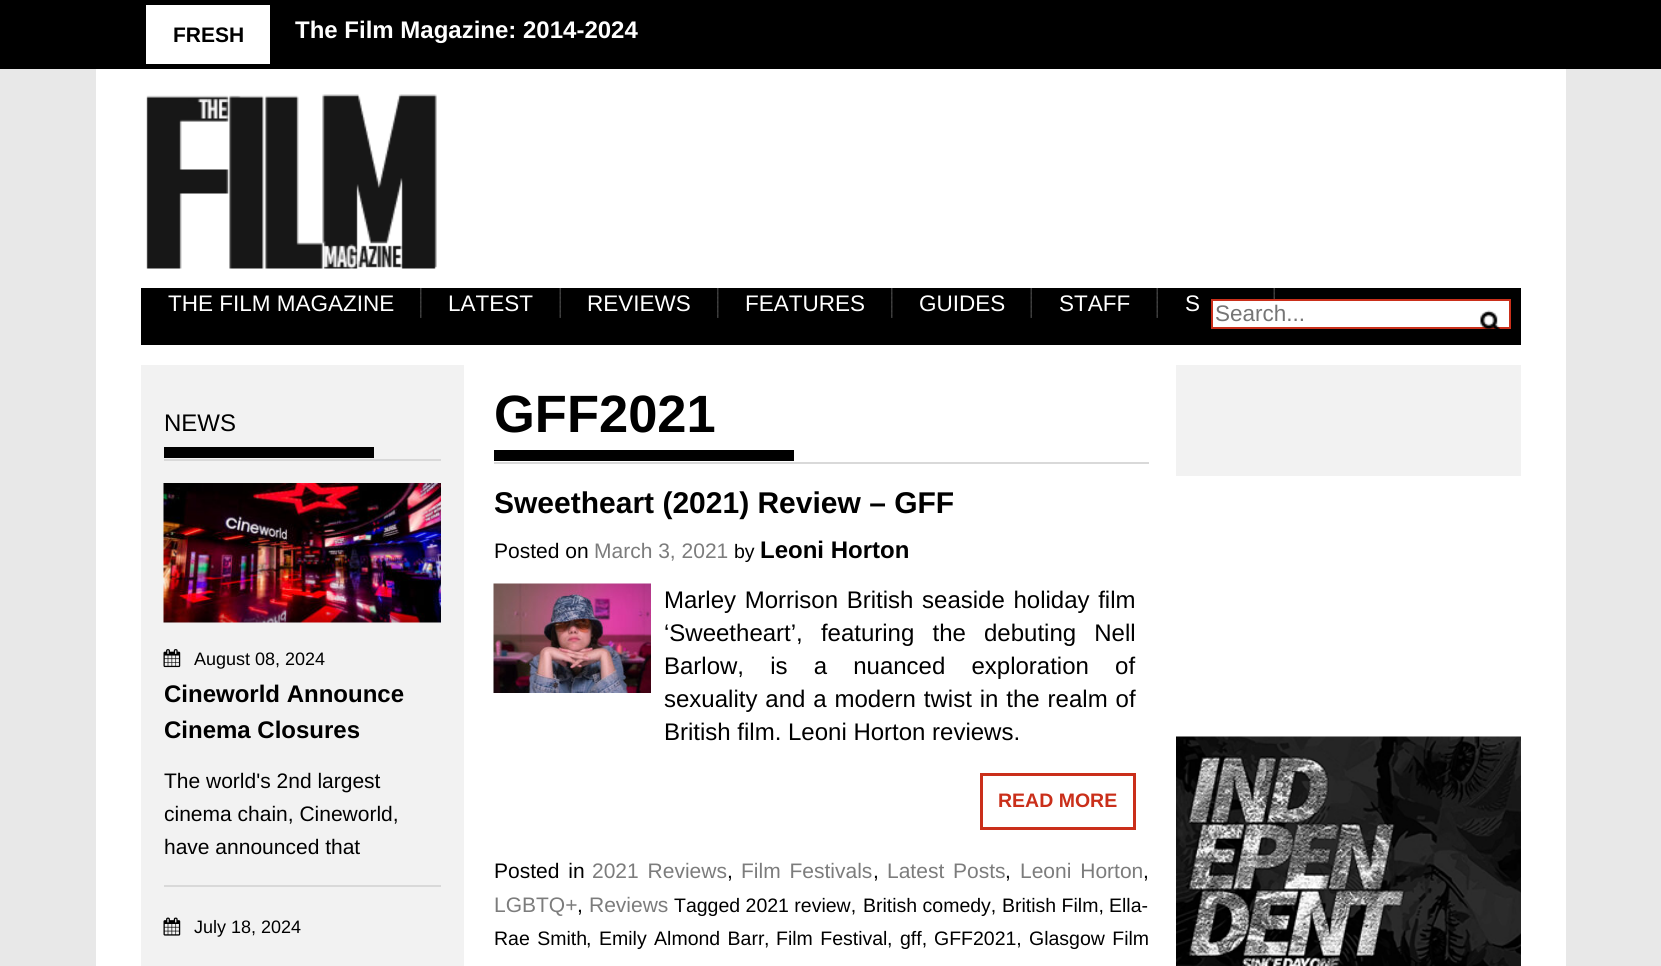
#include <cairo.h>
#include <math.h>
#include <stddef.h>

static cairo_t *c;
static void C(unsigned color){cairo_set_source_rgb(c, (color >> 16) / 255.0, (color >> 8 & 255) / 255.0, (color & 255) / 255.0);}
static void F(const char *family, double size, int italic, int bold){cairo_select_font_face(c, family, italic ? CAIRO_FONT_SLANT_ITALIC : CAIRO_FONT_SLANT_NORMAL,bold ? CAIRO_FONT_WEIGHT_BOLD : CAIRO_FONT_WEIGHT_NORMAL);cairo_set_font_size(c, size);}
static void T(double x, double y, const char *s){cairo_move_to(c, x, y);cairo_show_text(c, s);}
static void L(double x, double y, const char *s, double letter, double word){cairo_move_to(c, x, y);while (*s) {char ch[5] = {0};int n = 0;do ch[n++] = *s++; while ((*s & 0xC0) == 0x80);cairo_show_text(c, ch);cairo_rel_move_to(c, letter + word * (*ch == ' '), 0);}}
static void R(double x, double y, double w, double h){cairo_rectangle(c, x, y, w, h);cairo_fill(c);}
static void I(const char *path, double x, double y, double w, double h){cairo_surface_t *image = cairo_image_surface_create_from_png(path);cairo_save(c);cairo_set_source_surface(c, image, x, y);cairo_rectangle(c, x, y, w, h);cairo_fill(c);cairo_restore(c);cairo_surface_destroy(image);}
int main(void) {
cairo_surface_t *surface = cairo_image_surface_create(CAIRO_FORMAT_RGB24, 1661, 966);
c = cairo_create(surface);
cairo_font_options_t *options = cairo_font_options_create();
cairo_font_options_set_hint_metrics(options, CAIRO_HINT_METRICS_OFF);
cairo_font_options_set_hint_style(options, CAIRO_HINT_STYLE_NONE);
cairo_set_font_options(c, options);
cairo_set_miter_limit(c, 4);
C(0xe8e8e8);
cairo_paint(c);
C(0x000000);
R(0,0,1661,69);
C(0xffffff);
R(146,5,124,59);
F("Liberation Sans",21,0,1);
C(0x000000);
T(173,42,"FRESH");
F("Liberation Sans",24,0,1);
C(0xffffff);
T(295,38,"The Film Magazine: 2014-2024");
R(96,69,1470,897);
I("1.png",146,94,291,175);
C(0x000000);
R(141,288,1380,57);
I("2.png",420,288,2,30);
F("Liberation Sans",22.5,0,0);
C(0xffffff);
T(168,311,"THE FILM MAGAZINE");
I("3.png",559,288,2,30);
T(448,311,"LATEST");
I("2.png",717,288,2,30);
T(587,311,"REVIEWS");
I("4.png",891,288,2,30);
T(745,311,"FEATURES");
I("3.png",1030,288,2,30);
T(919,311,"GUIDES");
I("5.png",1156,288,2,30);
T(1059,311,"STAFF");
I("6.png",1273,288,2,11);
T(1185,311,"S");
cairo_rectangle(c,1212,300,298,28);
cairo_fill_preserve(c);
C(0xca2f1a);
cairo_stroke(c);
C(0x757575);
T(1215,321,"Search...");
I("7.png",1480,310,20,19);
C(0xf2f2f2);
R(141,365,323,601);
C(0xd9d9d9);
R(164,459,277,2);
F("Liberation Sans",24,0,0);
C(0x000000);
T(164,431,"NEWS");
R(164,447,210,11);
C(0xd9d9d9);
R(164,885,277,2);
I("8.png",163,483,278,140);
I("9.png",163,649,18,19);
F("Liberation Sans",18,0,0);
C(0x000000);
T(194,665,"August 08, 2024");
F("Liberation Sans",24,0,1);
T(164,702,"Cineworld Announce");
T(164,738,"Cinema Closures");
F("Liberation Sans",21,0,0);
T(164,788,"The world's 2nd largest");
T(164,821,"cinema chain, Cineworld,");
T(164,854,"have announced that");
I("10.png",163,917,18,19);
F("Liberation Sans",18,0,0);
T(194,933,"July 18, 2024");
C(0xd9d9d9);
R(494,462,655,2);
F("Liberation Sans",52.5,0,1);
C(0x000000);
T(494,432,"GFF2021");
R(494,450,300,11);
F("Liberation Sans",30,0,1);
T(494,513,"Sweetheart (2021) Review – GFF");
F("Liberation Sans",21,0,0);
T(494,558,"Posted on");
C(0x7c7c7c);
T(594,558,"March 3, 2021");
F("Liberation Sans",19.5,0,0);
C(0x000000);
T(734,558,"by");
F("Liberation Sans",24,0,1);
T(760,558,"Leoni Horton");
I("11.png",493,583,158,110);
F("Liberation Sans",24,0,0);
L(664,608,"Marley Morrison British seaside holiday film",0,2);
L(664,641,"‘Sweetheart’, featuring the debuting Nell",0,11.5);
L(664,674,"Barlow, is a nuanced exploration of",0,19.5);
L(664,707,"sexuality and a modern twist in the realm of",0,1.25);
T(664,740,"British film. Leoni Horton reviews.");
cairo_rectangle(c,981.5,774.5,153,54);
C(0xca2f1a);
cairo_set_line_width(c,3);
cairo_stroke(c);
F("Liberation Sans",19.5,0,1);
T(998,807,"READ MORE");
F("Liberation Sans",21,0,0);
C(0x000000);
L(494,878,"Posted in",0,3);
C(0x7c7c7c);
L(592,878,"2021 Reviews",0,3);
C(0x000000);
T(727,878,",");
C(0x7c7c7c);
L(741,878,"Film Festivals",0,3);
C(0x000000);
T(873,878,",");
C(0x7c7c7c);
L(887,878,"Latest Posts",0,3);
C(0x000000);
T(1005,878,",");
C(0x7c7c7c);
L(1020,878,"Leoni Horton",0,3);
C(0x000000);
T(1143,878,",");
C(0x7c7c7c);
T(494,912,"LGBTQ+");
C(0x000000);
T(577,912,",");
C(0x7c7c7c);
T(589,912,"Reviews");
F("Liberation Sans",19.5,0,0);
C(0x000000);
T(674,912,"Tagged 2021 review,");
T(863,912,"British comedy,");
T(1002,912,"British Film,");
T(1109,912,"Ella-");
L(494,945,"Rae Smith",0,2);
T(586,945,",");
L(599,945,"Emily Almond Barr",0,2);
T(764,945,",");
L(776,945,"Film Festival",0,2);
T(887,945,",");
T(900,945,"gff,");
T(934,945,"GFF2021,");
L(1029,945,"Glasgow Film",0,2);
C(0xf2f2f2);
R(1176,365,345,111);
I("12.png",1176,736,345,230);
cairo_surface_write_to_png(surface, "o.png");
cairo_font_options_destroy(options);
cairo_destroy(c);
cairo_surface_destroy(surface);
return 0;
}
